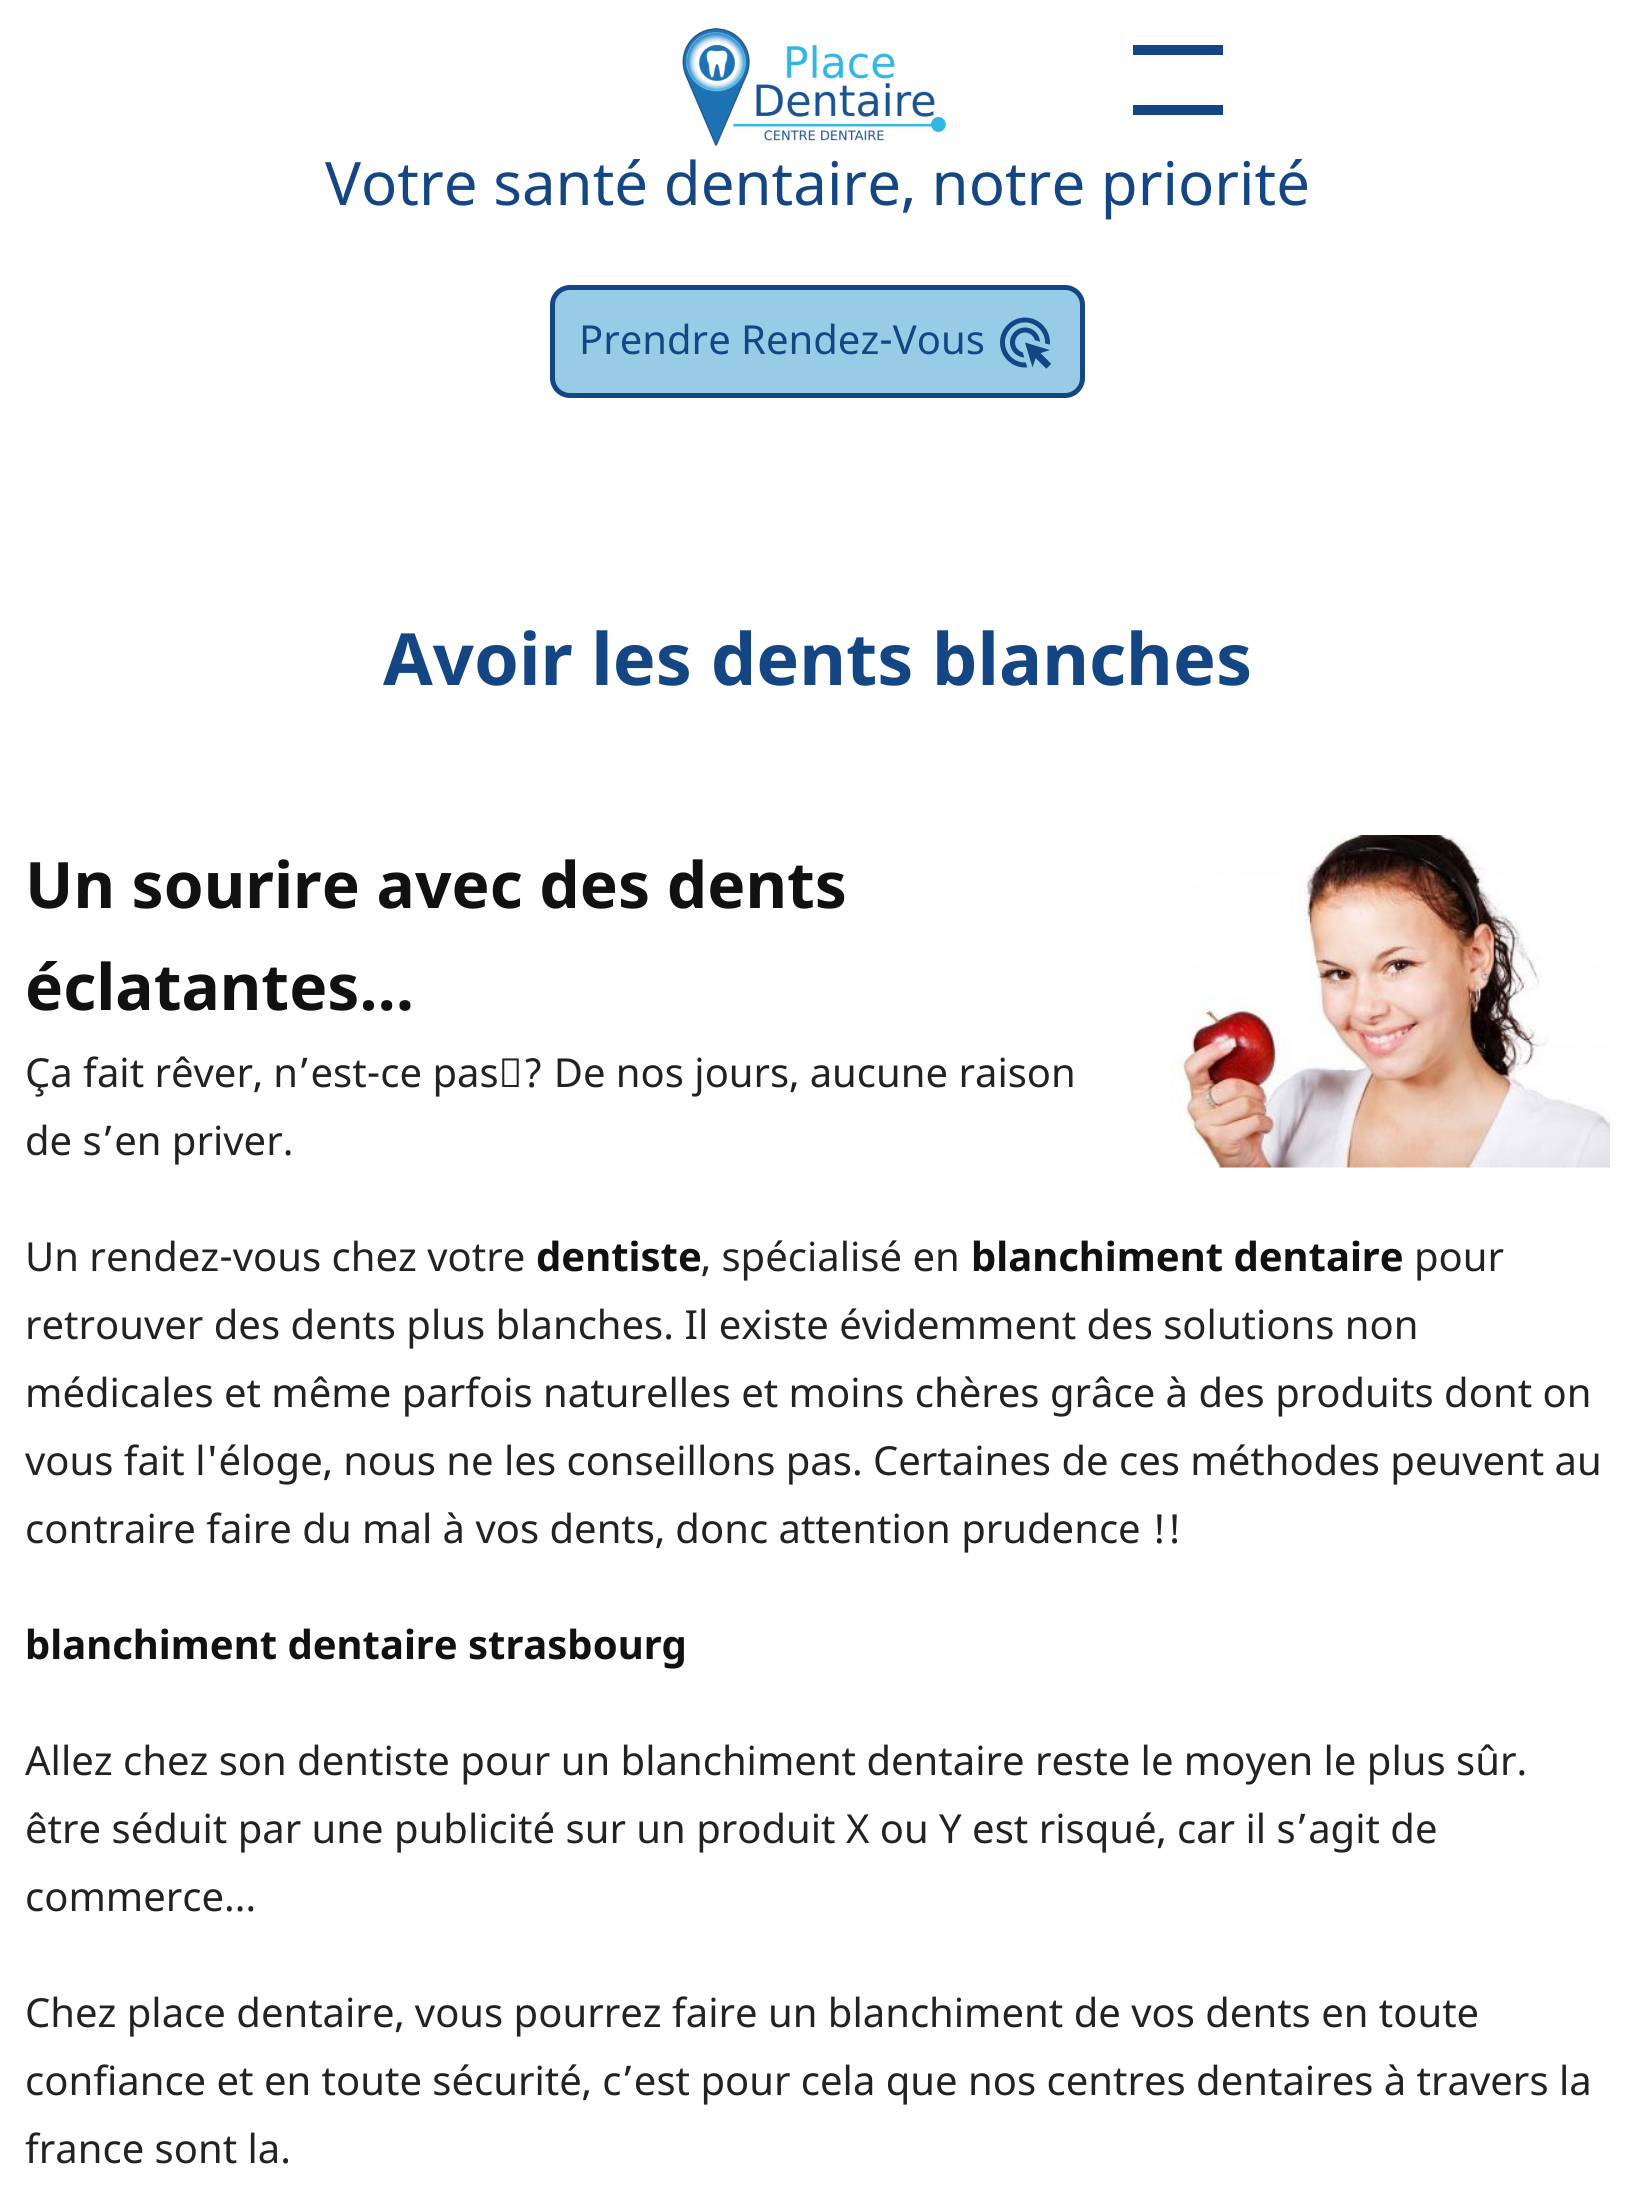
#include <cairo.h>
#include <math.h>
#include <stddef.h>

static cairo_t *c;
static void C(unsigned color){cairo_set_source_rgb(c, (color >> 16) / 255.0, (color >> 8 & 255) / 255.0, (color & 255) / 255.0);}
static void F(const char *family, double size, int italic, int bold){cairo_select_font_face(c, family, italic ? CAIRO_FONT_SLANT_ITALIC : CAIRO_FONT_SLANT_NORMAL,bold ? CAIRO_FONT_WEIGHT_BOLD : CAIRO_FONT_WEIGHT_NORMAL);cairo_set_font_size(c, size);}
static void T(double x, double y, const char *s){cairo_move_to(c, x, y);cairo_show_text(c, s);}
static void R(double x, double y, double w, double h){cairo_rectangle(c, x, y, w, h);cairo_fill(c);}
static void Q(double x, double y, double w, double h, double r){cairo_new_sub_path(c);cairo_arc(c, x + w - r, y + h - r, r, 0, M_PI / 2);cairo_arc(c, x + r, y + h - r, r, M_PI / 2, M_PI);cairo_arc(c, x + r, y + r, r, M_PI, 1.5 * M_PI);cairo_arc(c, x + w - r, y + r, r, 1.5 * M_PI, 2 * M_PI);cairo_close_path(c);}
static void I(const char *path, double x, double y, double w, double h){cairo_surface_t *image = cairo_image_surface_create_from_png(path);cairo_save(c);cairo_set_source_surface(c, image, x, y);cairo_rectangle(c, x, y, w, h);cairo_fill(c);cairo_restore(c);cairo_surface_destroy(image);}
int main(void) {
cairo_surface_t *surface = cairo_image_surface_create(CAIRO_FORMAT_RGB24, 1635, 2186);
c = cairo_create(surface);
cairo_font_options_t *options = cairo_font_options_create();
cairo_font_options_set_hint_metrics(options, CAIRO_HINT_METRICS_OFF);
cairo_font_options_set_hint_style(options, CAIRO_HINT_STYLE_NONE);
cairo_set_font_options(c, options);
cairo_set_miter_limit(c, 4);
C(0xffffff);
cairo_paint(c);
C(0x134683);
R(1133,45,90,10);
R(1133,105,90,10);
I("1.png",682,28,264,118);
F("Noto Sans",60,0,0);
T(325,205,"Votre santé dentaire, notre priorité");
C(0x98cce6);
Q(552.5,287.5,530,108,17.5);
cairo_fill_preserve(c);
C(0x134683);
cairo_set_line_width(c,5);
cairo_stroke(c);
F("Noto Sans",40,0,0);
T(579,354,"Prendre Rendez-Vous");
I("2.png",1000,317,52,52);
F("Noto Sans",72,0,1);
T(383,685,"Avoir les dents blanches");
F("Noto Sans",64,0,1);
C(0x111111);
T(25,908,"Un sourire avec des dents");
I("3.png",1170,835,440,333);
T(25,1010,"éclatantes…");
F("Noto Sans",40,0,0);
C(0x222222);
T(25,1087,"Ça fait rêver, n’est-ce pas ? De nos jours, aucune raison");
T(25,1155,"de s’en priver.");
T(25,1271,"Un rendez-vous chez votre");
F("Noto Sans",40,0,1);
C(0x111111);
T(536,1271,"dentiste");
F("Noto Sans",40,0,0);
C(0x222222);
T(701,1271,", spécialisé en");
F("Noto Sans",40,0,1);
C(0x111111);
T(971,1271,"blanchiment dentaire");
F("Noto Sans",40,0,0);
C(0x222222);
T(1414,1271,"pour");
T(25,1339,"retrouver des dents plus blanches. Il existe évidemment des solutions non");
T(25,1407,"médicales et même parfois naturelles et moins chères grâce à des produits dont on");
T(25,1475,"vous fait l'éloge, nous ne les conseillons pas. Certaines de ces méthodes peuvent au");
T(25,1543,"contraire faire du mal à vos dents, donc attention prudence !!");
F("Noto Sans",40,0,1);
C(0x111111);
T(25,1659,"blanchiment dentaire strasbourg");
F("Noto Sans",40,0,0);
C(0x222222);
T(25,1775,"Allez chez son dentiste pour un blanchiment dentaire reste le moyen le plus sûr.");
T(25,1843,"être séduit par une publicité sur un produit X ou Y est risqué, car il s’agit de");
T(25,1911,"commerce…");
T(25,2027,"Chez place dentaire, vous pourrez faire un blanchiment de vos dents en toute");
T(25,2095,"confiance et en toute sécurité, c’est pour cela que nos centres dentaires à travers la");
T(25,2163,"france sont la.");
cairo_surface_write_to_png(surface, "o.png");
cairo_font_options_destroy(options);
cairo_destroy(c);
cairo_surface_destroy(surface);
return 0;
}
